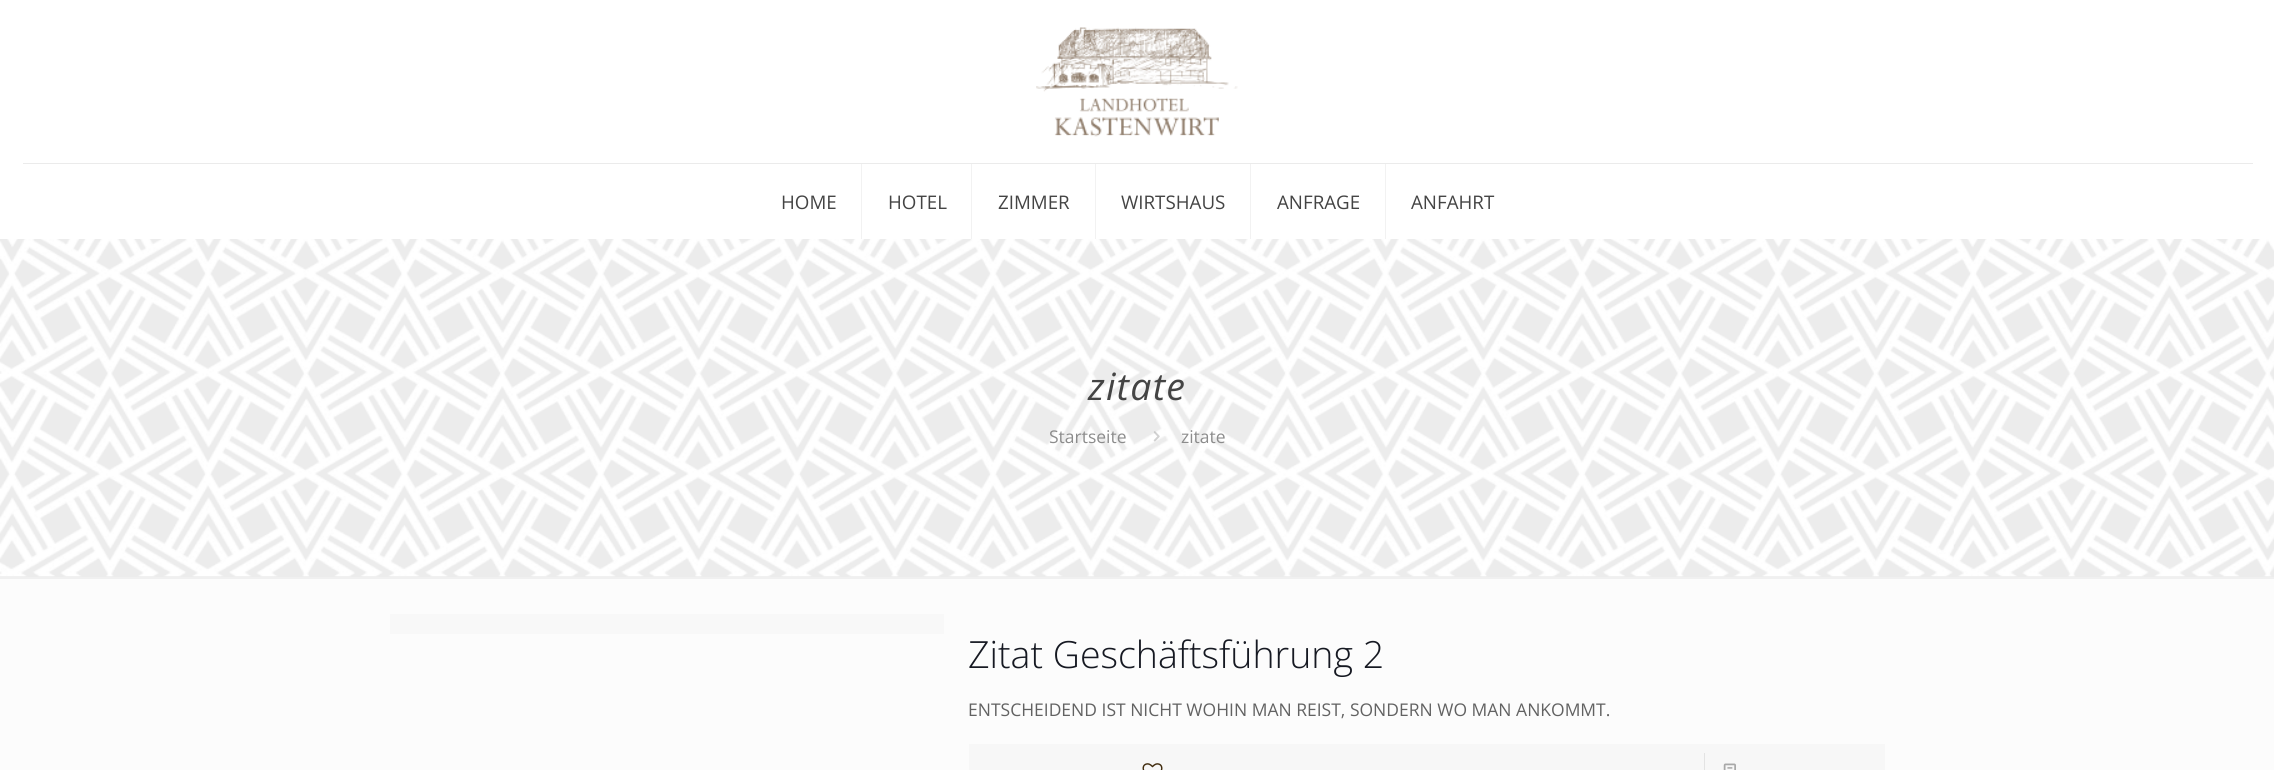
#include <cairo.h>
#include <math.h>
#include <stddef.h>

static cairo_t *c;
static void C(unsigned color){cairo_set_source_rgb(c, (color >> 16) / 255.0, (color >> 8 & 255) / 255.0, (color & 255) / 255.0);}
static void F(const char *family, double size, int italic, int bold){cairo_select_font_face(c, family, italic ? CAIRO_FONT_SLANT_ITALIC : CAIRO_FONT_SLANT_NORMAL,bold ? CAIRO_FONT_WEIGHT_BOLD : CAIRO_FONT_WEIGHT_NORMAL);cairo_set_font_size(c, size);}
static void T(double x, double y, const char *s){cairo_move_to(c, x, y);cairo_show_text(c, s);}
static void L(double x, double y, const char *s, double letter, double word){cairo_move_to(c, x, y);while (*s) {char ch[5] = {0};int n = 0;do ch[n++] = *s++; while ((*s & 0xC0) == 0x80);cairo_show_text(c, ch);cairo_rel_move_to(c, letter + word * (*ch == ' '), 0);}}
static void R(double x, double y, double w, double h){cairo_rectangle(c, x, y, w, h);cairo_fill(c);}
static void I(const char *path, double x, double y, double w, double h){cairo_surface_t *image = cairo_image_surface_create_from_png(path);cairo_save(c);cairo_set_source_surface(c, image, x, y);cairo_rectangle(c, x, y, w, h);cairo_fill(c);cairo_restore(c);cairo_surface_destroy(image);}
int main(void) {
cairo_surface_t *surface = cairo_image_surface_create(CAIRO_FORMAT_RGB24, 2274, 770);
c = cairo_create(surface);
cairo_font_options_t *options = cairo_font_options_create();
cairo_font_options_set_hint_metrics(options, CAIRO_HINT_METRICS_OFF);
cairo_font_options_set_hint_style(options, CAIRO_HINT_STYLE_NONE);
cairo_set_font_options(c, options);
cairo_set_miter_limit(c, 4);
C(0xfcfcfc);
cairo_paint(c);
I("1.png",0,239,2274,338);
C(0xffffff);
R(0,0,2274,239);
C(0xebebeb);
R(23,163,2230,1);
I("2.png",1036,27,202,110);
C(0xf2f2f2);
R(861,164,1,75);
F("Open Sans",18.75,0,0);
C(0x444444);
T(781,209,"HOME");
C(0xf2f2f2);
R(971,164,1,75);
C(0x444444);
T(888,209,"HOTEL");
C(0xf2f2f2);
R(1095,164,1,75);
C(0x444444);
T(998,209,"ZIMMER");
C(0xf2f2f2);
R(1250,164,1,75);
C(0x444444);
T(1121,209,"WIRTSHAUS");
C(0xf2f2f2);
R(1385,164,1,75);
C(0x444444);
T(1277,209,"ANFRAGE");
T(1411,209,"ANFAHRT");
F("Open Sans",37.5,1,0);
L(1088,400,"zitate",1.25,0);
F("Open Sans",17.5,0,0);
C(0x8c8c8c);
T(1049,443,"Startseite");
I("3.png",1153,431,7,11);
T(1181,443,"zitate");
cairo_set_source_rgba(c,0,0,0,0.05);
R(0,576,2274,3);
C(0xf8f8f8);
R(390,614,554,20);
F("Open Sans Light",37.5,0,0);
C(0x161922);
T(968,668,"Zitat Geschäftsführung 2");
F("Open Sans",17.5,0,0);
C(0x626262);
T(968,716,"ENTSCHEIDEND IST NICHT WOHIN MAN REIST, SONDERN WO MAN ANKOMMT.");
C(0xf7f7f7);
R(969,744,916,26);
I("4.png",1142,763,21,7);
C(0xe3e3e3);
R(1704,753,1,17);
I("5.png",1723,763,13,7);
cairo_surface_write_to_png(surface, "o.png");
cairo_font_options_destroy(options);
cairo_destroy(c);
cairo_surface_destroy(surface);
return 0;
}
